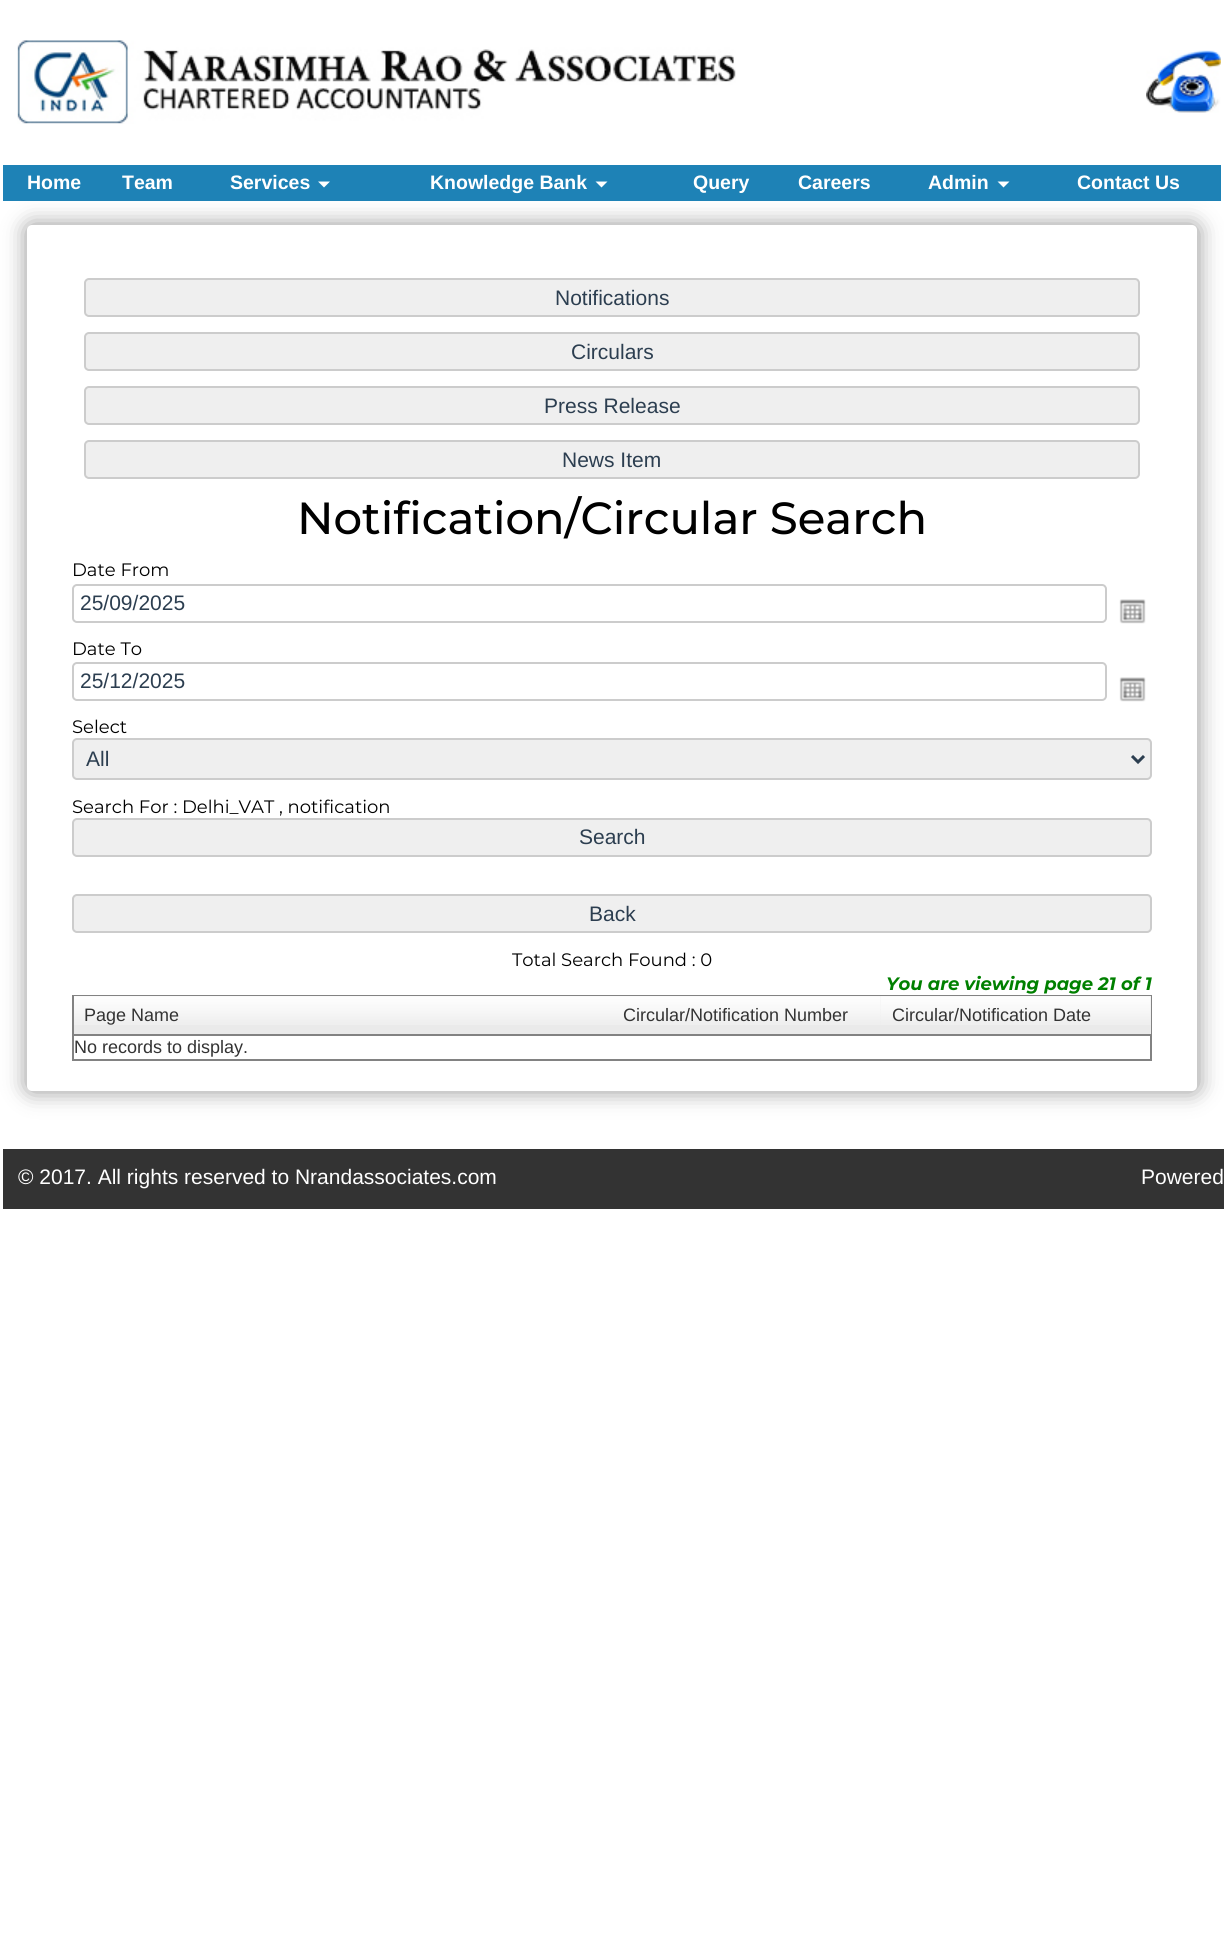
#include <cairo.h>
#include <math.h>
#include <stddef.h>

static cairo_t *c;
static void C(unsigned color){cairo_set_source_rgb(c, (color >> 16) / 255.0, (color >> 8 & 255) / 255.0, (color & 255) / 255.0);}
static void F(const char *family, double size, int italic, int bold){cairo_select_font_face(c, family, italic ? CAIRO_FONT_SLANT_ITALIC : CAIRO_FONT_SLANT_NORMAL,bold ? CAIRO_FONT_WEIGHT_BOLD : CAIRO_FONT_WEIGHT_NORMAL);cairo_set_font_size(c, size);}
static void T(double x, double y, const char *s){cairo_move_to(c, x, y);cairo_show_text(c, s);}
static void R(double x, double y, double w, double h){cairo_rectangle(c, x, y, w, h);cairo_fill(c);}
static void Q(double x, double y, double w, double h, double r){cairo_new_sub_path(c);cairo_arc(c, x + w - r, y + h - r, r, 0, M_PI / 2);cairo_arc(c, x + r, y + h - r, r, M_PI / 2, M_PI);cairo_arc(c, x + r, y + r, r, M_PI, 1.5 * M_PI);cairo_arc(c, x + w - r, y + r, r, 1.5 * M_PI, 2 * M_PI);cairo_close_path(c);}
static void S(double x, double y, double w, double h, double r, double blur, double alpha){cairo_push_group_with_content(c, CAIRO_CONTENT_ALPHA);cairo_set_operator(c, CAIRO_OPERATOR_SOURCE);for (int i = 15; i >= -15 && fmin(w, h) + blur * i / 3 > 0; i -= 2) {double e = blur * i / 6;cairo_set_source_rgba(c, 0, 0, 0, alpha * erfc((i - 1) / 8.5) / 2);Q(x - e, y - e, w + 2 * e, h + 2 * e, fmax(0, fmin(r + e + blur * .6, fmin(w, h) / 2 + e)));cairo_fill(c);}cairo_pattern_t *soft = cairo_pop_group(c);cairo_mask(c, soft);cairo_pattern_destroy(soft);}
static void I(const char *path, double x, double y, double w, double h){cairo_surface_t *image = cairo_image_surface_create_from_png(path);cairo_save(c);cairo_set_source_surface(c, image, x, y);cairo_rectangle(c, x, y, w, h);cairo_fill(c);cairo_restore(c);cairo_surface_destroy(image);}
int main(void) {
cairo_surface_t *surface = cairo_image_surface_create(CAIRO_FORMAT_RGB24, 1224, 1937);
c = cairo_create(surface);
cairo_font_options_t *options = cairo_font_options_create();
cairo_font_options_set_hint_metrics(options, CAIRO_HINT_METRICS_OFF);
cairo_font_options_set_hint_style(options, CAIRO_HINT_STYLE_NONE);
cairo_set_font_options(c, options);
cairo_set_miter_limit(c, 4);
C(0xffffff);
cairo_paint(c);
I("1.png",17,40,719,84);
I("2.png",1146,50,75,63);
C(0x000000);
S(26,224,1173,868,6,11,.4);
C(0x1e82b6);
R(3,165,1218,36);
F("Liberation Sans",19.5,0,1);
C(0xffffff);
T(27,189,"Home");
T(122,189,"Team");
T(230,189,"Services");
cairo_new_path(c);
cairo_move_to(c,318,181.5);
cairo_line_to(c,330,181.5);
cairo_line_to(c,324,187.5);
cairo_close_path(c);
cairo_fill(c);
T(430,189,"Knowledge Bank");
cairo_new_path(c);
cairo_move_to(c,595.5,181.5);
cairo_line_to(c,607.5,181.5);
cairo_line_to(c,601.5,187.5);
cairo_close_path(c);
cairo_fill(c);
T(693,189,"Query");
T(798,189,"Careers");
T(928,189,"Admin");
cairo_new_path(c);
cairo_move_to(c,997.5,181.5);
cairo_line_to(c,1009.5,181.5);
cairo_line_to(c,1003.5,187.5);
cairo_close_path(c);
cairo_fill(c);
T(1077,189,"Contact Us");
Q(27,225,1170,866,5);
cairo_fill(c);
C(0xefefef);
Q(85,279,1054,37,4);
cairo_fill_preserve(c);
C(0xcccccc);
cairo_stroke(c);
F("Liberation Sans",21,0,0);
C(0x2c3e50);
T(555,305,"Notifications");
C(0xefefef);
Q(85,333,1054,37,4);
cairo_fill_preserve(c);
C(0xcccccc);
cairo_stroke(c);
C(0x2c3e50);
T(571,359,"Circulars");
C(0xefefef);
Q(85,387,1054,37,4);
cairo_fill_preserve(c);
C(0xcccccc);
cairo_stroke(c);
C(0x2c3e50);
T(544,413,"Press Release");
C(0xefefef);
Q(85,441,1054,37,4);
cairo_fill_preserve(c);
C(0xcccccc);
cairo_stroke(c);
C(0x2c3e50);
T(562,467,"News Item");
F("Montserrat Medium",45,0,0);
C(0x000000);
T(297,534,"Notification/Circular Search");
F("Montserrat",18,0,0);
T(72,576,"Date From");
Q(73,585,1033,37,4);
C(0xcccccc);
cairo_stroke(c);
F("Liberation Sans",21,0,0);
C(0x2c3e50);
T(80,610,"25/09/2025");
I("3.png",1119,599,27,25);
F("Montserrat",18,0,0);
C(0x000000);
T(72,655,"Date To");
Q(73,663,1033,37,4);
C(0xcccccc);
cairo_stroke(c);
F("Liberation Sans",21,0,0);
C(0x2c3e50);
T(80,688,"25/12/2025");
I("3.png",1119,677,27,25);
F("Montserrat",18,0,0);
C(0x000000);
T(72,733,"Select");
C(0xefefef);
Q(73,739,1078,40,4);
cairo_fill_preserve(c);
C(0xcccccc);
cairo_stroke(c);
cairo_new_path(c);
cairo_move_to(c,1132,756);
cairo_line_to(c,1138,762);
cairo_line_to(c,1144,756);
C(0x2c3e50);
cairo_set_line_width(c,3);
cairo_stroke(c);
F("Liberation Sans",21,0,0);
T(86,766,"All");
F("Montserrat",18,0,0);
C(0x000000);
T(72,813,"Search For : Delhi_VAT , notification");
C(0xefefef);
Q(73,819,1078,37,4);
cairo_fill_preserve(c);
C(0xcccccc);
cairo_set_line_width(c,2);
cairo_stroke(c);
F("Liberation Sans",21,0,0);
C(0x2c3e50);
T(579,844,"Search");
C(0xefefef);
Q(73,895,1078,37,4);
cairo_fill_preserve(c);
C(0xcccccc);
cairo_stroke(c);
C(0x2c3e50);
T(589,921,"Back");
F("Montserrat",18,0,0);
C(0x000000);
T(512,966,"Total Search Found : 0");
F("Montserrat",18,1,1);
C(0x008000);
T(886,990,"You are viewing page 21 of 1");
cairo_rectangle(c,73,996,1078,64);
C(0x828282);
cairo_stroke(c);
C(0xeaeaea);
R(74,996,1077,38);
I("4.png",74,996,538,29);
C(0x828282);
R(74,1034,1077,2);
F("Liberation Sans",18,0,0);
C(0x333333);
T(84,1021,"Page Name");
I("5.png",612,996,269,29);
T(623,1021,"Circular/Notification Number");
I("6.png",880,996,271,29);
T(892,1021,"Circular/Notification Date");
T(74,1053,"No records to display.");
R(3,1149,1221,60);
F("Liberation Sans",21,0,0);
C(0xffffff);
T(18,1184,"© 2017. All rights reserved to Nrandassociates.com");
T(1141,1184,"Powered");
cairo_surface_write_to_png(surface, "o.png");
cairo_font_options_destroy(options);
cairo_destroy(c);
cairo_surface_destroy(surface);
return 0;
}
